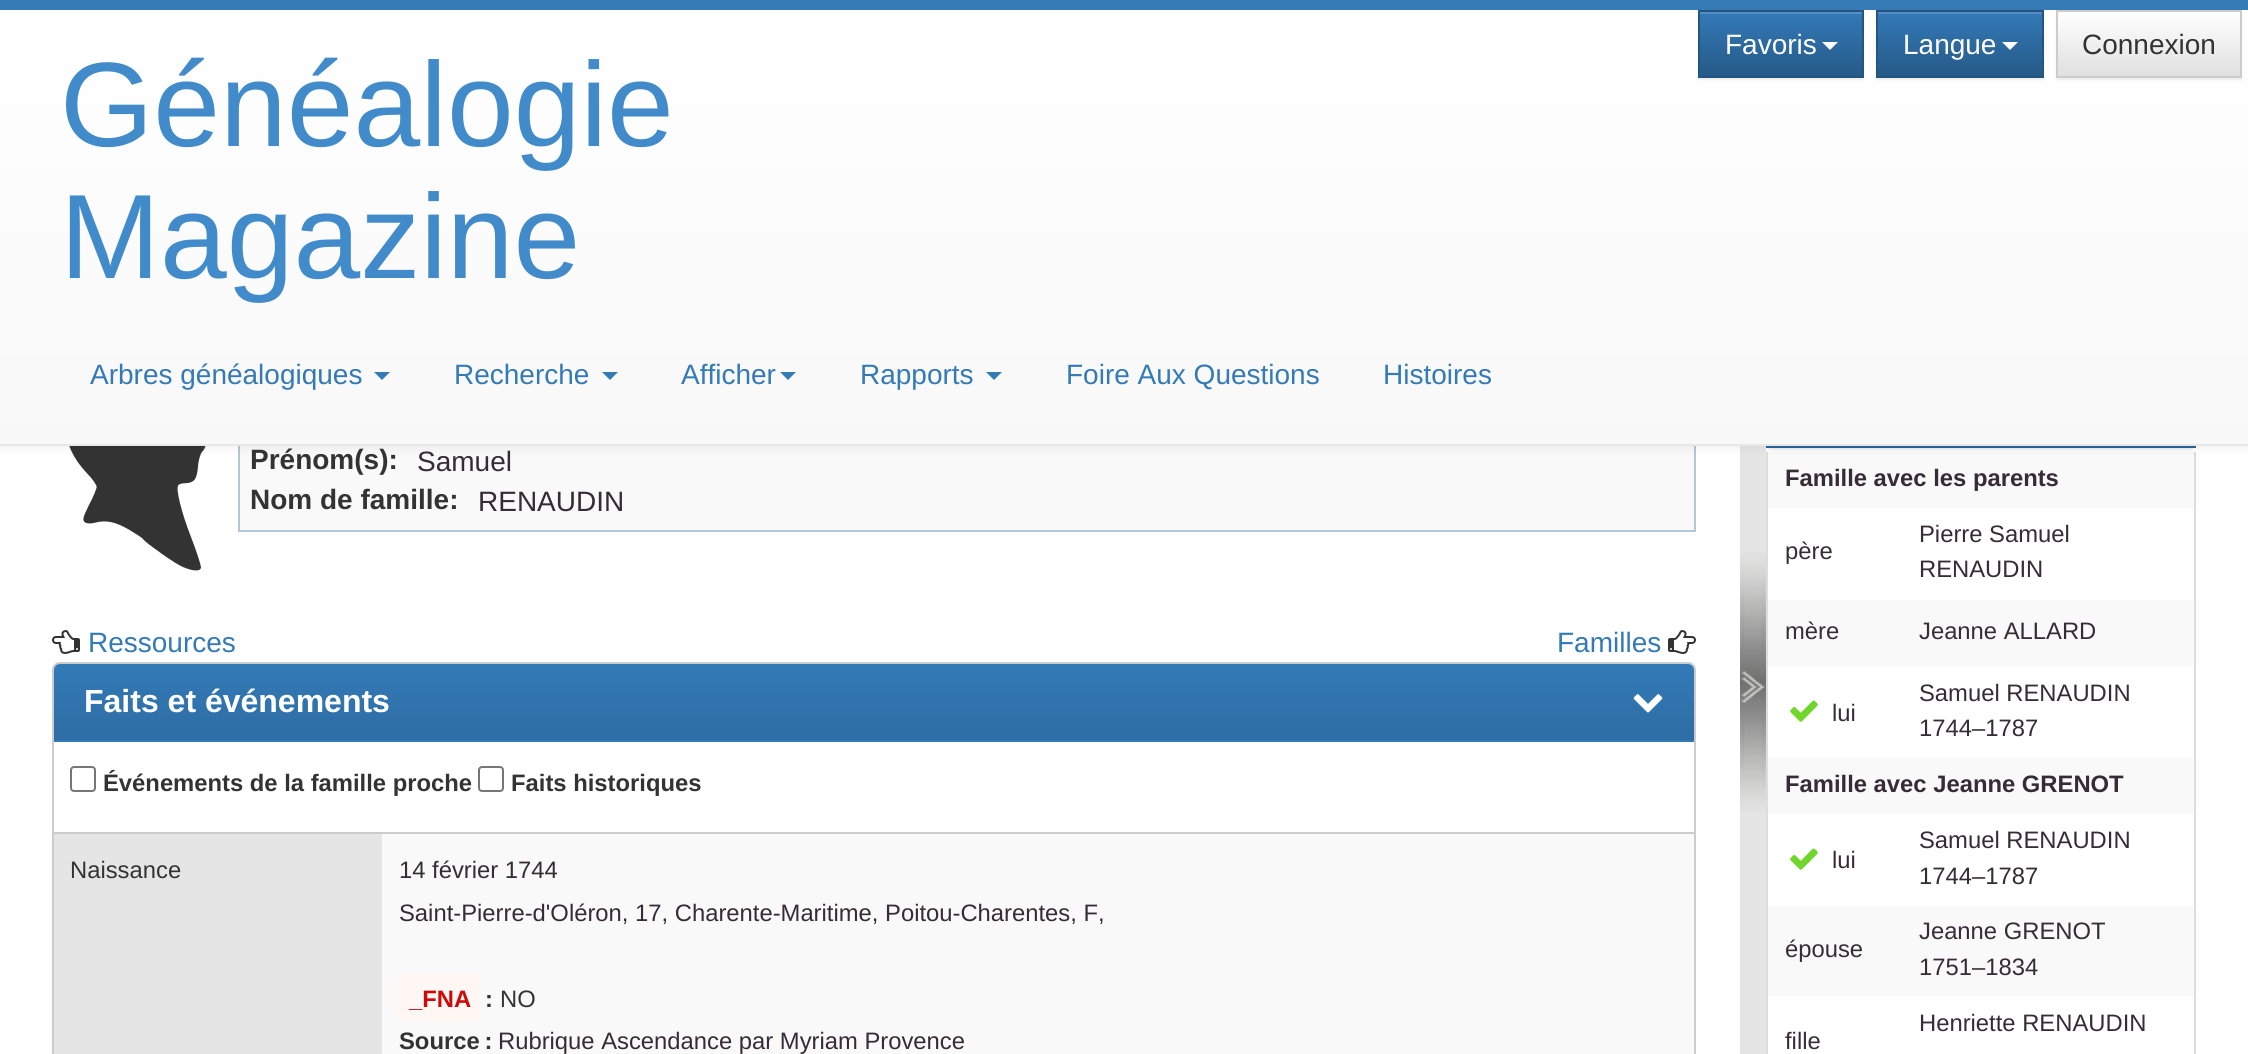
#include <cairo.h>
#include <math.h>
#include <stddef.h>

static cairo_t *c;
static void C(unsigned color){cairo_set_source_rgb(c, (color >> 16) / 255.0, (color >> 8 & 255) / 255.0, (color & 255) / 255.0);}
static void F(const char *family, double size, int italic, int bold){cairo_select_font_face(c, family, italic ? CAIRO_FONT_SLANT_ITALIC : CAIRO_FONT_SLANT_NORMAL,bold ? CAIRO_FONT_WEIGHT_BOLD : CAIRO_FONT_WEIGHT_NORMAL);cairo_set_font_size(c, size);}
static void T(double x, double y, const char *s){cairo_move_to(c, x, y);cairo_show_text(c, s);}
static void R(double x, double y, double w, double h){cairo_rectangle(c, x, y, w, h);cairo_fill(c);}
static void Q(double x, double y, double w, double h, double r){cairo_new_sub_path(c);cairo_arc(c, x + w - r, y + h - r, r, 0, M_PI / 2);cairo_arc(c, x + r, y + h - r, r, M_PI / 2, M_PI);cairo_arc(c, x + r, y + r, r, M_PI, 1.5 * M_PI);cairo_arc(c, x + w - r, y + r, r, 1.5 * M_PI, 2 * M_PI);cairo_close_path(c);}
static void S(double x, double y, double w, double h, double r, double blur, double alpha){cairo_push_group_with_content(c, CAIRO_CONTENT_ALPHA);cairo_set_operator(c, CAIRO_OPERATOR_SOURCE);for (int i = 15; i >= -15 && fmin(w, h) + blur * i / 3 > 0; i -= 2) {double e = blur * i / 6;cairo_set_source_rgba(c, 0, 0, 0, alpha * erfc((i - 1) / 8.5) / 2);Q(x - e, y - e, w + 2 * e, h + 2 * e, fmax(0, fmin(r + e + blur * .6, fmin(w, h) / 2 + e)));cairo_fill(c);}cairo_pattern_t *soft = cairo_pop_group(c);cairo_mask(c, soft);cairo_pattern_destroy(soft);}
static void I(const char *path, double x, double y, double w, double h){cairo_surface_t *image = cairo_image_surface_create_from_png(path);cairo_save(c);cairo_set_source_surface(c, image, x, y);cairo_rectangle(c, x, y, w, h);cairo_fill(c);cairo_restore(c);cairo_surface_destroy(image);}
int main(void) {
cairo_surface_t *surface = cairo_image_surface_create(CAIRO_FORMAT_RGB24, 2248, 1054);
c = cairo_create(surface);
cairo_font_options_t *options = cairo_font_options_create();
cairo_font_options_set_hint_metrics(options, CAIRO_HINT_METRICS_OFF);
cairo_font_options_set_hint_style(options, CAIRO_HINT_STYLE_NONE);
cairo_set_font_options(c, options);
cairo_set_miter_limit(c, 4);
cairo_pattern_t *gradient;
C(0xffffff);
cairo_paint(c);
I("1.png",69,446,137,125);
C(0xf9f9f9);
R(240,446,1454,84);
C(0xb2c7d7);
R(1694,446,2,86);
R(238,530,1458,2);
R(238,446,2,86);
C(0xe5e5e5);
R(1740,446,26,608);
C(0x000000);
S(1766,396,430,54,6,1,.07);
cairo_rectangle(c,1767,395,428,52);
C(0x2b669a);
cairo_stroke(c);
C(0xdddddd);
cairo_set_fill_rule(c,CAIRO_FILL_RULE_EVEN_ODD);
cairo_new_path(c);
cairo_move_to(c,1766,452);
cairo_line_to(c,2196,452);
cairo_line_to(c,2196,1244);
cairo_curve_to(c,2196,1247,2193,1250,2190,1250);
cairo_line_to(c,1772,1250);
cairo_curve_to(c,1769,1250,1766,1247,1766,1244);
cairo_close_path(c);
cairo_move_to(c,1768,452);
cairo_line_to(c,2194,452);
cairo_line_to(c,2194,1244);
cairo_curve_to(c,2194,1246,2192,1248,2190,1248);
cairo_line_to(c,1772,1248);
cairo_curve_to(c,1770,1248,1768,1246,1768,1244);
cairo_close_path(c);
cairo_fill(c);
C(0xf9f9f9);
R(1768,452,426,56);
C(0x000000);
S(0,2,2248,446,0,5,.07);
gradient = cairo_pattern_create_linear(1124,10,1124,444);
cairo_pattern_add_color_stop_rgba(gradient,0,1,1,1,1);
cairo_pattern_add_color_stop_rgba(gradient,1,0.973,0.973,0.973,1);
cairo_set_source(c,gradient);
cairo_pattern_destroy(gradient);
R(0,10,2248,434);
C(0x377bb5);
R(0,0,2248,10);
C(0xe7e7e7);
R(0,444,2248,2);
C(0x000000);
S(1698,12,166,68,0,1,.07);
gradient = cairo_pattern_create_linear(1781,12,1781,76);
cairo_pattern_add_color_stop_rgba(gradient,0,0.2,0.478,0.718,1);
cairo_pattern_add_color_stop_rgba(gradient,1,0.149,0.353,0.533,1);
cairo_set_source(c,gradient);
cairo_pattern_destroy(gradient);
R(1700,14,162,62);
C(0x528ec1);
R(1700,12,162,2);
cairo_rectangle(c,1699,11,164,66);
C(0x245580);
cairo_stroke(c);
F("Liberation Sans",28,0,0);
C(0xffffff);
T(1725,54,"Favoris");
cairo_set_fill_rule(c,CAIRO_FILL_RULE_WINDING);
cairo_new_path(c);
cairo_move_to(c,1822,42);
cairo_line_to(c,1838,42);
cairo_line_to(c,1830,50);
cairo_close_path(c);
cairo_fill(c);
C(0x000000);
S(1876,12,168,68,0,1,.07);
gradient = cairo_pattern_create_linear(1960,12,1960,76);
cairo_pattern_add_color_stop_rgba(gradient,0,0.2,0.478,0.718,1);
cairo_pattern_add_color_stop_rgba(gradient,1,0.149,0.353,0.533,1);
cairo_set_source(c,gradient);
cairo_pattern_destroy(gradient);
R(1878,14,164,62);
C(0x528ec1);
R(1878,12,164,2);
cairo_rectangle(c,1877,11,166,66);
C(0x245580);
cairo_stroke(c);
C(0xffffff);
T(1903,54,"Langue");
cairo_new_path(c);
cairo_move_to(c,2002,42);
cairo_line_to(c,2018,42);
cairo_line_to(c,2010,50);
cairo_close_path(c);
cairo_fill(c);
C(0x000000);
S(2056,12,186,68,0,1,.07);
gradient = cairo_pattern_create_linear(2149,12,2149,76);
cairo_pattern_add_color_stop_rgba(gradient,0,1,1,1,1);
cairo_pattern_add_color_stop_rgba(gradient,1,0.878,0.878,0.878,1);
cairo_set_source(c,gradient);
cairo_pattern_destroy(gradient);
R(2058,12,182,64);
cairo_rectangle(c,2057,11,184,66);
C(0xcccccc);
cairo_stroke(c);
C(0x333333);
T(2082,54,"Connexion");
F("Liberation Sans",120,0,0);
C(0x428bca);
T(60,146,"Généalogie");
T(60,278,"Magazine");
F("Liberation Sans",28,0,0);
C(0x337ab7);
T(90,384,"Arbres généalogiques");
cairo_new_path(c);
cairo_move_to(c,374,372);
cairo_line_to(c,390,372);
cairo_line_to(c,382,380);
cairo_close_path(c);
cairo_fill(c);
T(454,384,"Recherche");
cairo_new_path(c);
cairo_move_to(c,602,372);
cairo_line_to(c,618,372);
cairo_line_to(c,610,380);
cairo_close_path(c);
cairo_fill(c);
T(681,384,"Afficher");
cairo_new_path(c);
cairo_move_to(c,780,372);
cairo_line_to(c,796,372);
cairo_line_to(c,788,380);
cairo_close_path(c);
cairo_fill(c);
T(860,384,"Rapports");
cairo_new_path(c);
cairo_move_to(c,986,372);
cairo_line_to(c,1002,372);
cairo_line_to(c,994,380);
cairo_close_path(c);
cairo_fill(c);
T(1066,384,"Foire Aux Questions");
T(1383,384,"Histoires");
F("Liberation Sans",28,0,1);
C(0x333333);
T(250,469,"Prénom(s):");
F("Liberation Sans",28,0,0);
C(0x362b36);
T(417,471,"Samuel");
F("Liberation Sans",28,0,1);
C(0x333333);
T(250,509,"Nom de famille:");
F("Liberation Sans",28,0,0);
C(0x362b36);
T(478,511,"RENAUDIN");
I("2.png",52,630,28,24);
C(0x337ab7);
T(88,652,"Ressources");
T(1557,652,"Familles");
I("3.png",1668,630,28,24);
Q(53,663,1642,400,7);
C(0xcccccc);
cairo_stroke(c);
gradient = cairo_pattern_create_linear(874,664,874,740);
cairo_pattern_add_color_stop_rgba(gradient,0,0.2,0.478,0.718,1);
cairo_pattern_add_color_stop_rgba(gradient,1,0.18,0.427,0.643,1);
cairo_set_source(c,gradient);
cairo_pattern_destroy(gradient);
cairo_new_path(c);
cairo_move_to(c,60,664);
cairo_line_to(c,1688,664);
cairo_curve_to(c,1691.5,664,1694,666.5,1694,670);
cairo_line_to(c,1694,740);
cairo_line_to(c,54,740);
cairo_line_to(c,54,670);
cairo_curve_to(c,54,666.5,56.5,664,60,664);
cairo_close_path(c);
cairo_fill(c);
F("Liberation Sans",32,0,1);
C(0xffffff);
T(84,712,"Faits et événements");
I("4.png",1633,694,30,19);
C(0x337ab7);
R(54,740,1640,2);
C(0xcccccc);
R(54,832,1642,2);
Q(71,767,24,24,3);
C(0x767676);
cairo_stroke(c);
F("Liberation Sans",23.8,0,1);
C(0x333333);
T(103,791,"Événements de la famille proche");
Q(479,767,24,24,3);
C(0x767676);
cairo_stroke(c);
C(0x333333);
T(511,791,"Faits historiques");
C(0xe5e5e5);
R(54,834,328,220);
F("Liberation Sans",23.8,0,0);
C(0x333333);
T(70,878,"Naissance");
C(0xf9f9f9);
R(382,834,1312,220);
C(0x362b36);
T(399,878,"14 février 1744");
T(399,921,"Saint-Pierre-d'Oléron, 17, Charente-Maritime, Poitou-Charentes, F,");
C(0xfff7f4);
R(398,974,82,48);
F("Liberation Sans",23.8,0,1);
C(0xcd0a0a);
T(409,1007,"_FNA");
C(0x333333);
T(485,1007,":");
F("Liberation Sans",23.8,0,0);
T(500,1007,"NO");
F("Liberation Sans",23.8,0,1);
T(399,1049,"Source :");
F("Liberation Sans",23.8,0,0);
C(0x362b36);
T(498,1049,"Rubrique Ascendance par Myriam Provence");
I("5.png",1740,552,26,260);
F("Liberation Sans",23.8,0,1);
T(1785,486,"Famille avec les parents");
F("Liberation Sans",23.8,0,0);
T(1785,559,"père");
T(1919,542,"Pierre Samuel");
T(1919,577,"RENAUDIN");
C(0xf9f9f9);
R(1768,600,426,66);
C(0x362b36);
T(1785,639,"mère");
T(1919,639,"Jeanne ALLARD");
I("6.png",1790,700,28,22);
T(1832,721,"lui");
T(1919,701,"Samuel RENAUDIN");
T(1919,736,"1744–1787");
C(0xf9f9f9);
R(1768,758,426,56);
F("Liberation Sans",23.8,0,1);
C(0x362b36);
T(1785,792,"Famille avec Jeanne GRENOT");
I("6.png",1790,848,28,22);
F("Liberation Sans",23.8,0,0);
T(1832,868,"lui");
T(1919,848,"Samuel RENAUDIN");
T(1919,884,"1744–1787");
C(0xf9f9f9);
R(1768,906,426,90);
C(0x362b36);
T(1785,957,"épouse");
T(1919,939,"Jeanne GRENOT");
T(1919,975,"1751–1834");
T(1919,1031,"Henriette RENAUDIN");
T(1785,1049,"fille");
cairo_surface_write_to_png(surface, "o.png");
cairo_font_options_destroy(options);
cairo_destroy(c);
cairo_surface_destroy(surface);
return 0;
}
